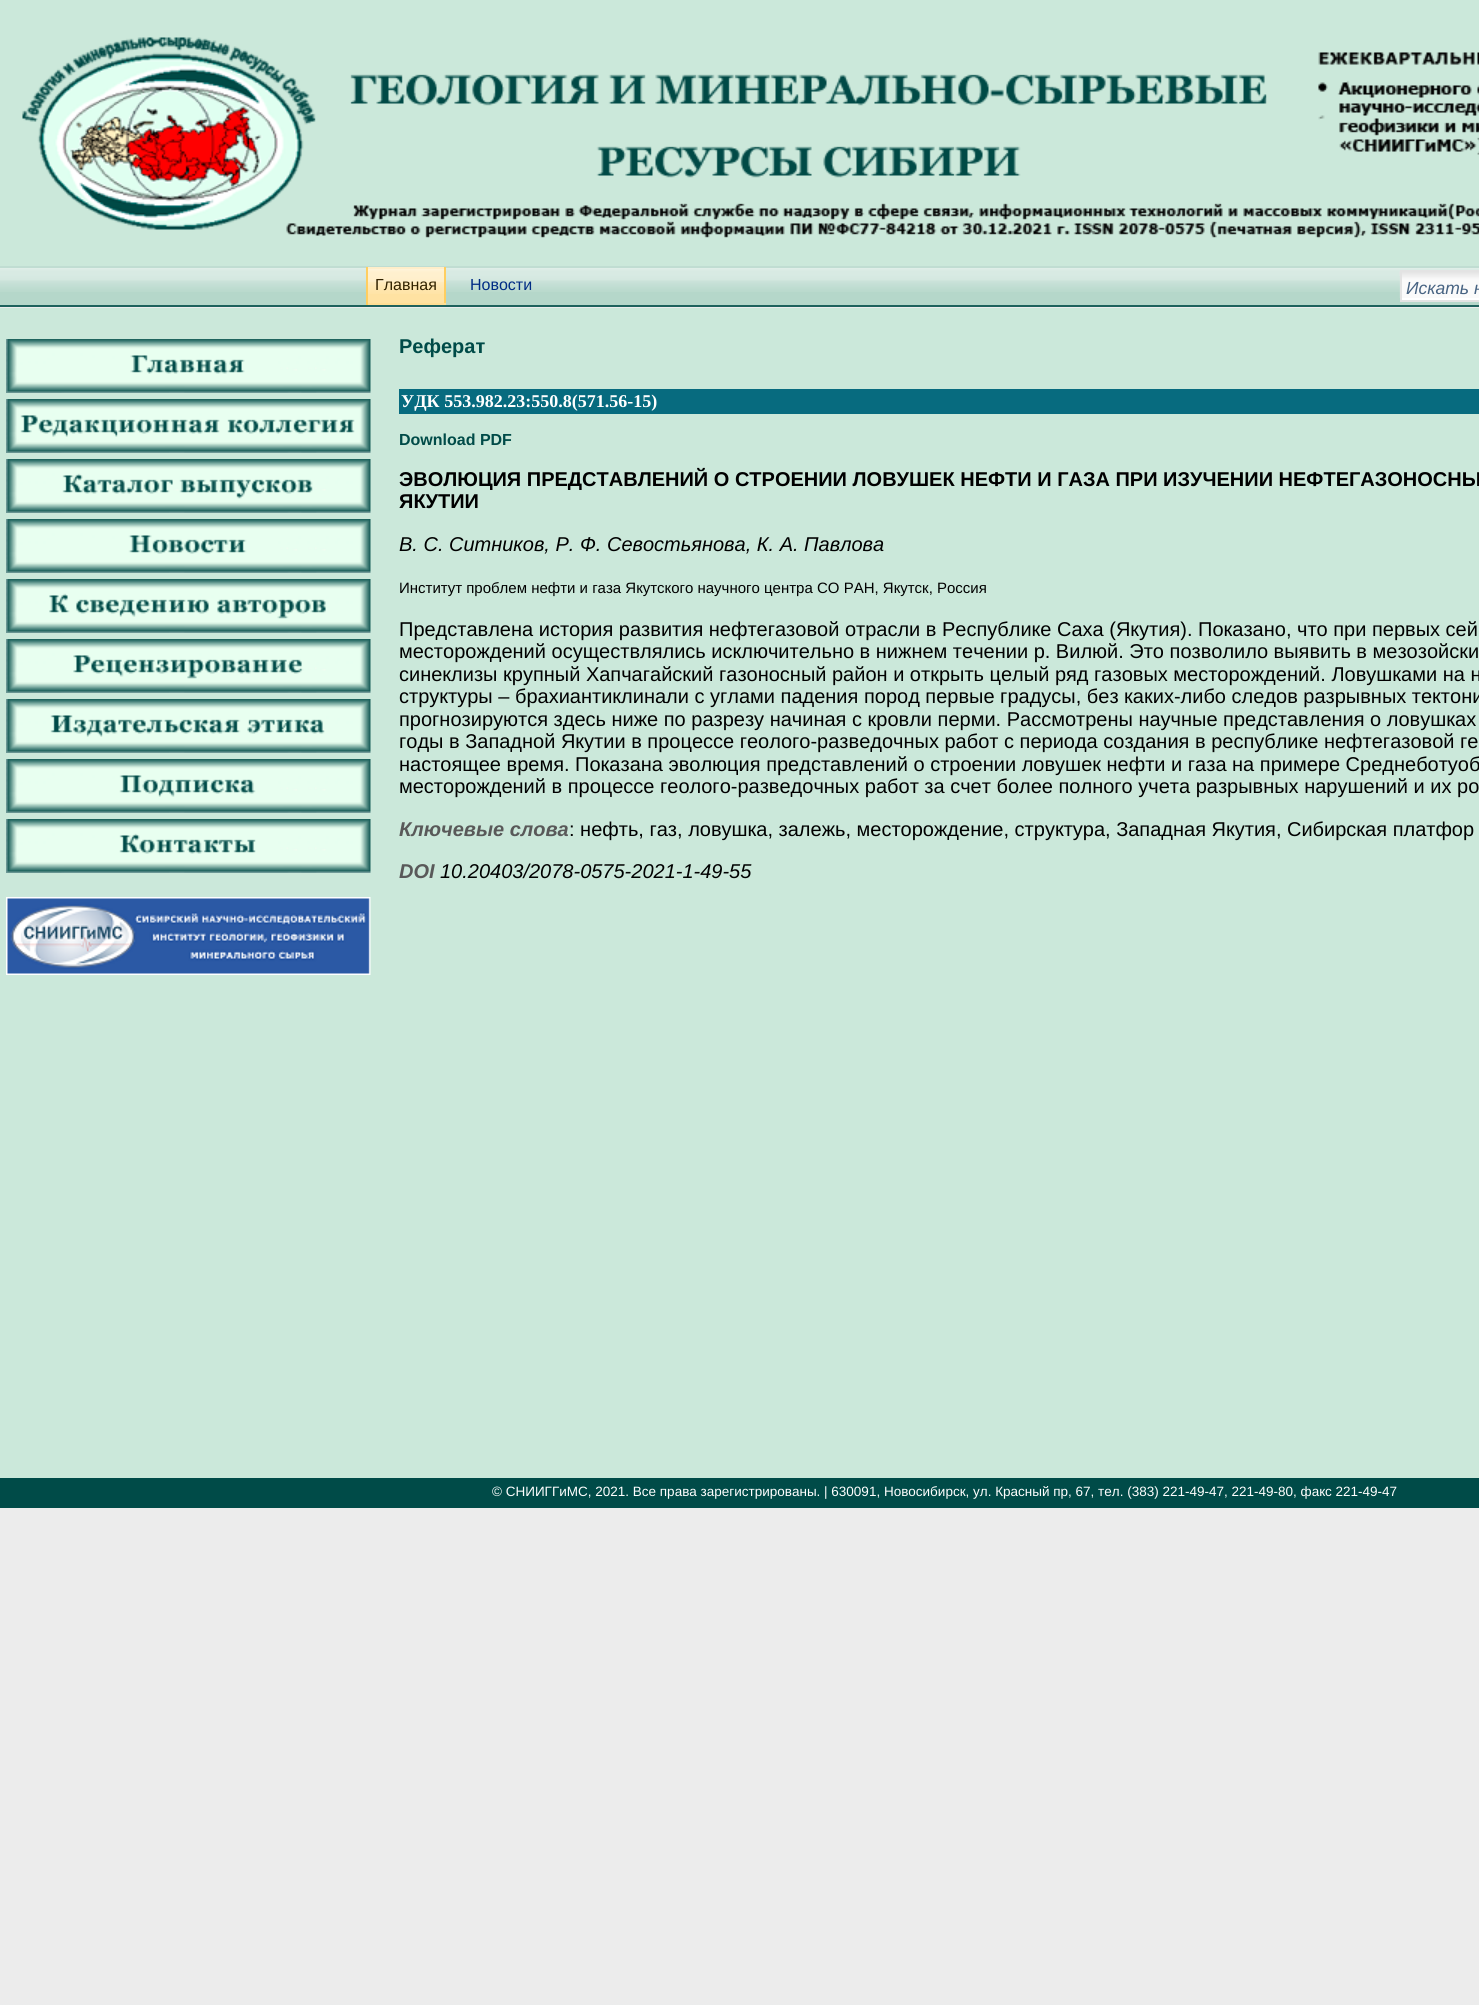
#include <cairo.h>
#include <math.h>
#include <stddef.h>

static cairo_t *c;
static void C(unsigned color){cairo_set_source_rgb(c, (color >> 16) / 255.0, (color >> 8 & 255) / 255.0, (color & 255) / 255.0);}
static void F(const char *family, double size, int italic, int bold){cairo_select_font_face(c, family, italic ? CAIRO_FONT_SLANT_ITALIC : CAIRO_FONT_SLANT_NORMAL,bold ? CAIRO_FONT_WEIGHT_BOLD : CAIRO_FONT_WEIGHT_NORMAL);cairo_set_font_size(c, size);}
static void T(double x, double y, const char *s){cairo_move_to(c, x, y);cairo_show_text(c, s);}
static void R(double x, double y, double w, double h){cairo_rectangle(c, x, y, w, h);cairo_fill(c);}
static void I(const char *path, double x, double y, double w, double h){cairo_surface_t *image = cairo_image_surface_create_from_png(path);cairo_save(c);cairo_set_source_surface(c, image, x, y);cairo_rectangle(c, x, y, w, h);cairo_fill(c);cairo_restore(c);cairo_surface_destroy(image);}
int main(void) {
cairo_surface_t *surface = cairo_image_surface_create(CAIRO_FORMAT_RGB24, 1479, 2005);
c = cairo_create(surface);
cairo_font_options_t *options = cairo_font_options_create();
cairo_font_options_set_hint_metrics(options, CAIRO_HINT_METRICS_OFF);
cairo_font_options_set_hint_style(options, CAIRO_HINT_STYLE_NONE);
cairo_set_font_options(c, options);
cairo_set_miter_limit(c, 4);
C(0xececec);
cairo_paint(c);
C(0xcbe8da);
R(0,0,1479,266);
I("1.png",22,37,1457,201);
C(0xb5d7ca);
R(0,268,1479,37);
I("2.png",0,268,1479,24);
C(0xc0ddd2);
R(0,266,1479,2);
C(0x1e625d);
R(0,305,1479,2);
C(0xffe2a2);
R(368,269,76,34);
I("3.png",368,269,76,25);
C(0xfeeeca);
R(366,267,80,2);
C(0xffce60);
R(444,267,2,38);
C(0xffde95);
R(366,303,80,2);
C(0xffce60);
R(366,267,2,38);
F("Liberation Sans",16,0,0);
C(0x312200);
T(375,290,"Главная");
C(0x002c84);
T(470,290,"Новости");
C(0xffffff);
R(1402,272,77,28);
I("4.png",1399,271,80,27);
cairo_rectangle(c,1401,271,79,30);
C(0xe3e3e3);
cairo_stroke(c);
F("Liberation Sans",17.5,1,0);
C(0x476382);
T(1406,294,"Искать н");
C(0xcbe8da);
R(0,308,1479,1170);
I("5.png",6,339,365,54);
I("6.png",6,399,365,54);
I("7.png",6,459,365,54);
I("8.png",6,519,365,54);
I("9.png",6,579,365,54);
I("10.png",6,639,365,54);
I("11.png",6,699,365,54);
I("12.png",6,759,365,54);
I("13.png",6,819,365,54);
I("14.png",6,897,365,78);
F("Liberation Sans",20,0,1);
C(0x004b48);
T(399,353,"Реферат");
C(0x076b7f);
R(399,389,1080,25);
F("Liberation Serif",18,0,1);
C(0xffffff);
T(401,407,"УДК 553.982.23:550.8(571.56-15)");
F("Liberation Sans",16,0,1);
C(0x004b48);
T(399,445,"Download PDF");
F("Liberation Sans",20,0,1);
C(0x000000);
T(399,486,"ЭВОЛЮЦИЯ ПРЕДСТАВЛЕНИЙ О СТРОЕНИИ ЛОВУШЕК НЕФТИ И ГАЗА ПРИ ИЗУЧЕНИИ НЕФТЕГАЗОНОСНЫ");
T(399,508,"ЯКУТИИ");
F("Liberation Sans",20,1,0);
T(399,551,"В. С. Ситников, Р. Ф. Севостьянова, К. А. Павлова");
F("Liberation Sans",15,0,0);
T(399,593,"Институт проблем нефти и газа Якутского научного центра СО РАН, Якутск, Россия");
F("Liberation Sans",20,0,0);
T(399,636,"Представлена история развития нефтегазовой отрасли в Республике Саха (Якутия). Показано, что при первых сей");
T(399,658,"месторождений осуществлялись исключительно в нижнем течении р. Вилюй. Это позволило выявить в мезозойски");
T(399,681,"синеклизы крупный Хапчагайский газоносный район и открыть целый ряд газовых месторождений. Ловушками на н");
T(399,703,"структуры – брахиантиклинали с углами падения пород первые градусы, без каких-либо следов разрывных тектони");
T(399,726,"прогнозируются здесь ниже по разрезу начиная с кровли перми. Рассмотрены научные представления о ловушках");
T(399,748,"годы в Западной Якутии в процессе геолого-разведочных работ с периода создания в республике нефтегазовой ге");
T(399,771,"настоящее время. Показана эволюция представлений о строении ловушек нефти и газа на примере Среднеботуоб");
T(399,793,"месторождений в процессе геолого-разведочных работ за счет более полного учета разрывных нарушений и их ро");
F("Liberation Sans",20,1,1);
C(0x595959);
T(399,836,"Ключевые слова");
F("Liberation Sans",20,0,0);
C(0x000000);
T(569,836,": нефть, газ, ловушка, залежь, месторождение, структура, Западная Якутия, Сибирская платфор");
F("Liberation Sans",20,1,1);
C(0x595959);
T(399,878,"DOI");
F("Liberation Sans",20,1,0);
C(0x000000);
T(440,878,"10.20403/2078-0575-2021-1-49-55");
C(0x004b48);
R(0,1478,1479,30);
F("Liberation Sans",13.5,0,0);
C(0xffffff);
T(492,1496,"© СНИИГГиМС, 2021. Все права зарегистрированы. | 630091, Новосибирск, ул. Красный пр, 67, тел. (383) 221-49-47, 221-49-80, факс 221-49-47");
cairo_surface_write_to_png(surface, "o.png");
cairo_font_options_destroy(options);
cairo_destroy(c);
cairo_surface_destroy(surface);
return 0;
}
